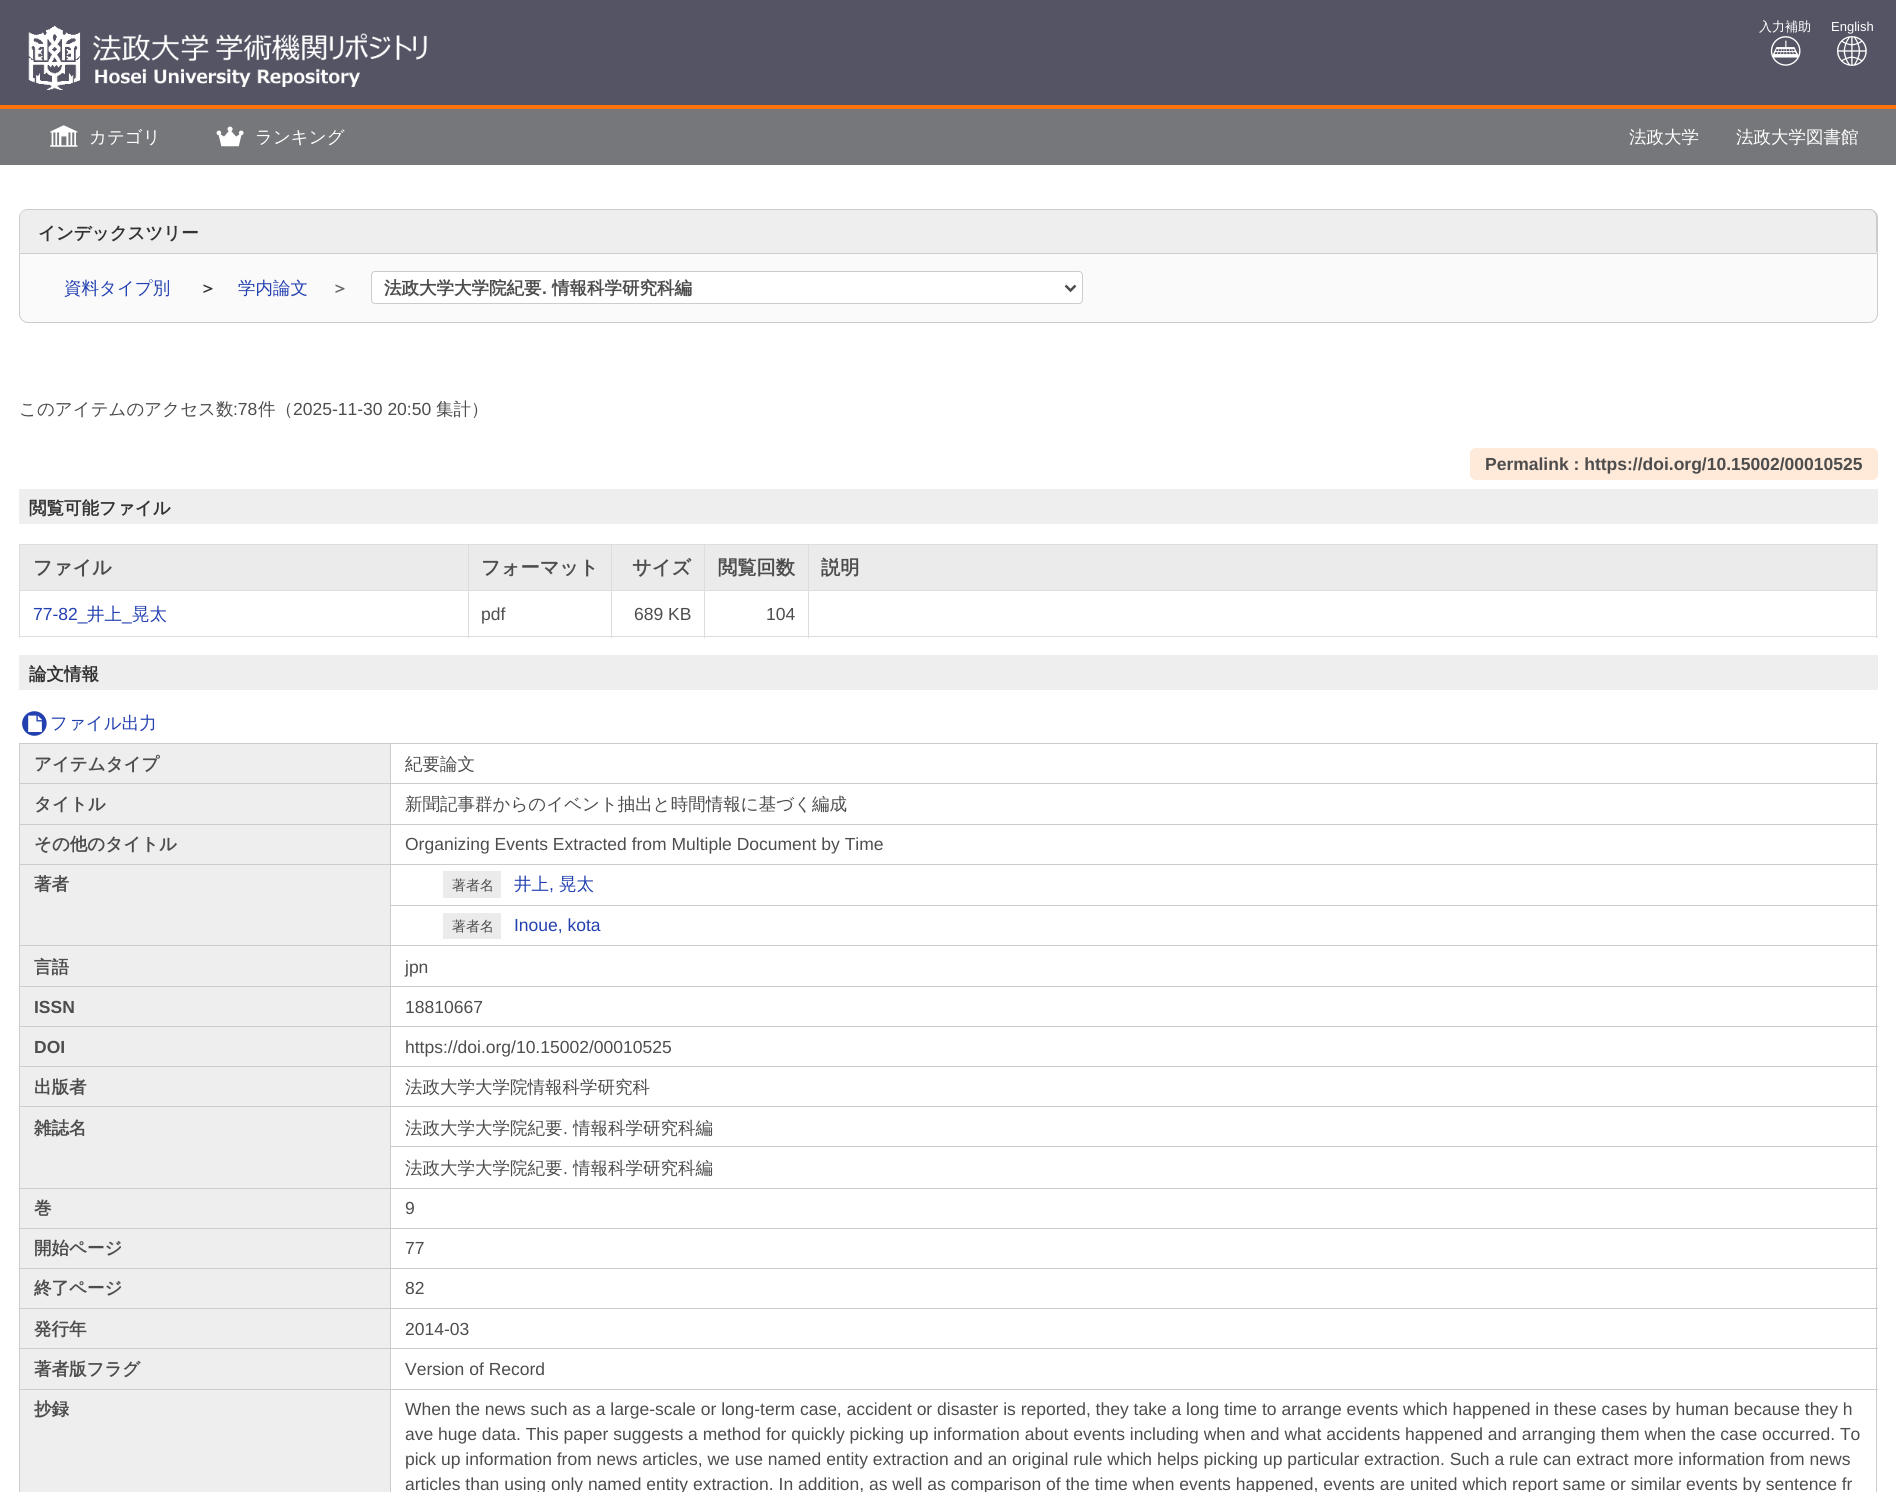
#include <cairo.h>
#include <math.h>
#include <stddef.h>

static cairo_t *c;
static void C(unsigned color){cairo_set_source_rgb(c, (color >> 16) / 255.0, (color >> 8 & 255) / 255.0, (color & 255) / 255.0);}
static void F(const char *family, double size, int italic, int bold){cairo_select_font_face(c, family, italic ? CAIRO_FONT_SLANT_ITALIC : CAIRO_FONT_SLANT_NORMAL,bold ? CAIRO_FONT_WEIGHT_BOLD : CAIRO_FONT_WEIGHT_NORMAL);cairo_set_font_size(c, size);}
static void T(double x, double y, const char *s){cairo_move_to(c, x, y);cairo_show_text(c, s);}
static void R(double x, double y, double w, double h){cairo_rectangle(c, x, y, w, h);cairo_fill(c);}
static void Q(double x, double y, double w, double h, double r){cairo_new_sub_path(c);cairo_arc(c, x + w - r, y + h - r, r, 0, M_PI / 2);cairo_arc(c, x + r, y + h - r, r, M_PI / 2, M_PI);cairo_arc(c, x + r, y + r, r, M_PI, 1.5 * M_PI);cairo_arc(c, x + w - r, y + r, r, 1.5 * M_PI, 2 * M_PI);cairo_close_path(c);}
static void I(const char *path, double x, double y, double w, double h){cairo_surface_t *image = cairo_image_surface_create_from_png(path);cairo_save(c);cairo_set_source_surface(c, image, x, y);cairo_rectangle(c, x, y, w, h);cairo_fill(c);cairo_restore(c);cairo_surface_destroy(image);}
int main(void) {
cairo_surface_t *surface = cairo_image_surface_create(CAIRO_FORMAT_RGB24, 1896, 1492);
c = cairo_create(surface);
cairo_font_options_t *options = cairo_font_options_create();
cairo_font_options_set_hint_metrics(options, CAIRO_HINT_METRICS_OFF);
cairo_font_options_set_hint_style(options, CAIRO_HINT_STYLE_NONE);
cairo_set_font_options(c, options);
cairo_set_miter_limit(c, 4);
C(0xffffff);
cairo_paint(c);
C(0x545464);
R(0,0,1896,105);
C(0xff720c);
R(0,105,1896,4);
I("1.png",28,25,399,65);
F("WenQuanYi Zen Hei Medium",13,0,0);
C(0xffffff);
T(1759,31,"入力補助");
I("2.png",1770,36,31,30);
F("Liberation Sans",13,0,0);
T(1831,31,"English");
I("3.png",1837,36,30,30);
C(0x76777b);
R(0,109,1896,56);
I("4.png",50,125,28,22);
F("WenQuanYi Zen Hei Medium",17.5,0,0);
C(0xffffff);
T(89,143,"カテゴリ");
I("5.png",216,126,28,21);
T(255,143,"ランキング");
T(1629,143,"法政大学");
T(1736,143,"法政大学図書館");
C(0xeeeeee);
cairo_new_path(c);
cairo_move_to(c,28,209);
cairo_line_to(c,1869,209);
cairo_curve_to(c,1874,209,1878,213,1878,218);
cairo_line_to(c,1878,253);
cairo_line_to(c,19,253);
cairo_line_to(c,19,218);
cairo_curve_to(c,19,213,23,209,28,209);
cairo_close_path(c);
cairo_fill(c);
C(0xcccccc);
cairo_set_fill_rule(c,CAIRO_FILL_RULE_EVEN_ODD);
cairo_new_path(c);
cairo_move_to(c,28,209);
cairo_line_to(c,1869,209);
cairo_curve_to(c,1874,209,1878,213,1878,218);
cairo_line_to(c,1878,252);
cairo_line_to(c,19,252);
cairo_line_to(c,19,218);
cairo_curve_to(c,19,213,23,209,28,209);
cairo_close_path(c);
cairo_move_to(c,28,210);
cairo_line_to(c,1869,210);
cairo_curve_to(c,1873,210,1876,213,1876,218);
cairo_line_to(c,1876,252);
cairo_line_to(c,20,252);
cairo_line_to(c,20,218);
cairo_curve_to(c,20,213,23,210,28,210);
cairo_close_path(c);
cairo_fill(c);
F("WenQuanYi Zen Hei",17.5,0,1);
C(0x333333);
T(38,239,"インデックスツリー");
C(0xfafafa);
cairo_new_path(c);
cairo_move_to(c,19.5,253.5);
cairo_line_to(c,1877.5,253.5);
cairo_line_to(c,1877.5,314);
cairo_curve_to(c,1877.5,318.5,1873.5,322.5,1869,322.5);
cairo_line_to(c,28,322.5);
cairo_curve_to(c,23.5,322.5,19.5,318.5,19.5,314);
cairo_close_path(c);
cairo_fill_preserve(c);
C(0xcccccc);
cairo_set_line_width(c,1);
cairo_stroke(c);
F("WenQuanYi Zen Hei Medium",17.5,0,0);
C(0x2240b0);
T(64,294,"資料タイプ別");
F("WenQuanYi Zen Hei",17.5,0,1);
C(0x333333);
T(199,294,"＞");
F("WenQuanYi Zen Hei Medium",17.5,0,0);
C(0x2240b0);
T(238,294,"学内論文");
F("WenQuanYi Zen Hei",17.5,0,1);
C(0x666666);
T(331,294,"＞");
C(0xffffff);
Q(371.5,271.5,711,32,3.5);
cairo_fill_preserve(c);
C(0xcccccc);
cairo_stroke(c);
cairo_new_path(c);
cairo_move_to(c,1065.5,285.5);
cairo_line_to(c,1070.5,290.5);
cairo_line_to(c,1075.5,285.5);
C(0x4d4d4d);
cairo_set_line_width(c,2.5);
cairo_stroke(c);
T(384,294,"法政大学大学院紀要");
F("Liberation Sans",17.5,0,1);
T(542,294,".");
F("WenQuanYi Zen Hei",17.5,0,1);
T(552,294,"情報科学研究科編");
F("WenQuanYi Zen Hei Medium",17.5,0,0);
T(19,415,"このアイテムのアクセス数");
F("Liberation Sans",17.5,0,0);
T(233,415,":78");
F("WenQuanYi Zen Hei Medium",17.5,0,0);
T(258,415,"件（");
F("Liberation Sans",17.5,0,0);
T(293,415,"2025-11-30 20:50");
F("WenQuanYi Zen Hei Medium",17.5,0,0);
T(436,415,"集計）");
C(0xffe9d9);
Q(1470,448,408,32,6);
cairo_fill(c);
F("Liberation Sans",17.5,0,1);
C(0x4d4d4d);
T(1485,470,"Permalink : https://doi.org/10.15002/00010525");
C(0xeeeeee);
R(19,489,1859,35);
F("WenQuanYi Zen Hei",17.5,0,1);
C(0x333333);
T(29,514,"閲覧可能ファイル");
C(0xebebeb);
R(20,545,448,45);
C(0xdddddd);
R(808,544,1070,1);
R(808,590,1070,1);
R(1876,590,1,48);
R(808,636,1070,1);
R(808,590,1,48);
R(704,590,105,1);
R(808,544,1,47);
R(704,544,105,1);
R(704,636,105,1);
R(704,590,1,48);
R(611,590,94,1);
R(704,544,1,47);
R(611,544,94,1);
C(0xebebeb);
R(469,545,235,45);
C(0xdddddd);
R(611,636,94,1);
R(611,590,1,48);
R(468,590,145,1);
R(611,544,1,47);
R(468,544,145,1);
R(468,636,145,1);
R(468,590,1,48);
R(19,590,450,1);
R(468,544,1,47);
R(19,544,450,1);
R(19,636,450,1);
R(19,590,1,48);
R(19,544,1,47);
F("WenQuanYi Zen Hei",19.25,0,1);
C(0x4d4d4d);
T(33,574,"ファイル");
T(481,574,"フォーマット");
T(632,574,"サイズ");
C(0xebebeb);
R(705,545,103,45);
C(0x4d4d4d);
T(718,574,"閲覧回数");
C(0xebebeb);
R(809,545,1069,45);
C(0xdddddd);
R(1876,544,1,47);
C(0x4d4d4d);
T(821,574,"説明");
F("Liberation Sans",17.5,0,0);
C(0x2240b0);
T(33,620,"77-82_");
F("WenQuanYi Zen Hei Medium",17.5,0,0);
T(87,620,"井上");
F("Liberation Sans",17.5,0,0);
T(122,620,"_");
F("WenQuanYi Zen Hei Medium",17.5,0,0);
T(132,620,"晃太");
F("Liberation Sans",17.5,0,0);
C(0x4d4d4d);
T(481,620,"pdf");
T(634,620,"689 KB");
T(766,620,"104");
C(0xeeeeee);
R(19,655,1859,35);
F("WenQuanYi Zen Hei",17.5,0,1);
C(0x333333);
T(29,680,"論文情報");
I("6.png",22,711,25,25);
F("WenQuanYi Zen Hei Medium",17.5,0,0);
C(0x2240b0);
T(50,729,"ファイル出力");
C(0xcccccc);
R(19,743,1859,1);
R(1876,743,1,749);
R(19,743,1,749);
C(0xeeeeee);
R(20,744,370,39);
F("WenQuanYi Zen Hei",17.5,0,1);
C(0x4d4d4d);
T(34,770,"アイテムタイプ");
F("WenQuanYi Zen Hei Medium",17.5,0,0);
T(405,770,"紀要論文");
C(0xeeeeee);
R(20,784,370,40);
C(0xcccccc);
R(19,783,1859,1);
R(19,824,1859,1);
R(19,864,1859,1);
R(390,905,1488,1);
R(19,945,1859,1);
R(19,986,1859,1);
R(19,1026,1859,1);
C(0xeeeeee);
R(20,1027,370,161);
C(0xcccccc);
R(19,1066,1859,1);
R(19,1106,1859,1);
R(390,1146,1488,1);
R(19,1188,1859,1);
R(19,1228,1859,1);
R(19,1268,1859,1);
R(19,1308,1859,1);
R(19,1348,1859,1);
R(19,1389,1859,1);
R(390,1389,1,103);
R(390,1348,1,42);
R(390,1308,1,41);
R(390,1268,1,41);
R(390,1228,1,41);
R(390,1188,1,41);
R(390,1106,1,83);
R(390,1066,1,42);
R(390,1026,1,42);
R(390,986,1,42);
R(390,945,1,43);
R(390,864,1,82);
R(390,824,1,41);
R(390,743,1,82);
F("WenQuanYi Zen Hei",17.5,0,1);
C(0x4d4d4d);
T(34,810,"タイトル");
F("WenQuanYi Zen Hei Medium",17.5,0,0);
T(405,810,"新聞記事群からのイベント抽出と時間情報に基づく編成");
C(0xeeeeee);
R(20,825,370,39);
F("WenQuanYi Zen Hei",17.5,0,1);
C(0x4d4d4d);
T(34,850,"その他のタイトル");
F("Liberation Sans",17.5,0,0);
T(405,850,"Organizing Events Extracted from Multiple Document by Time");
C(0xeeeeee);
R(20,865,370,80);
F("WenQuanYi Zen Hei",17.5,0,1);
C(0x4d4d4d);
T(34,890,"著者");
C(0xebebeb);
R(443,871,58,27);
F("WenQuanYi Zen Hei Medium",14,0,0);
C(0x4d4d4d);
T(452,890,"著者名");
F("WenQuanYi Zen Hei Medium",17.5,0,0);
C(0x2240b0);
T(514,890,"井上");
F("Liberation Sans",17.5,0,0);
T(549,890,",");
F("WenQuanYi Zen Hei Medium",17.5,0,0);
T(559,890,"晃太");
C(0xebebeb);
R(443,913,58,26);
F("WenQuanYi Zen Hei Medium",14,0,0);
C(0x4d4d4d);
T(452,931,"著者名");
F("Liberation Sans",17.5,0,0);
C(0x2240b0);
T(514,931,"Inoue, kota");
C(0xeeeeee);
R(20,946,370,40);
F("WenQuanYi Zen Hei",17.5,0,1);
C(0x4d4d4d);
T(34,973,"言語");
F("Liberation Sans",17.5,0,0);
T(405,973,"jpn");
C(0xeeeeee);
R(20,987,370,39);
F("Liberation Sans",17.5,0,1);
C(0x4d4d4d);
T(34,1013,"ISSN");
F("Liberation Sans",17.5,0,0);
T(405,1013,"18810667");
F("Liberation Sans",17.5,0,1);
T(34,1053,"DOI");
F("Liberation Sans",17.5,0,0);
T(405,1053,"https://doi.org/10.15002/00010525");
F("WenQuanYi Zen Hei",17.5,0,1);
T(34,1093,"出版者");
F("WenQuanYi Zen Hei Medium",17.5,0,0);
T(405,1093,"法政大学大学院情報科学研究科");
F("WenQuanYi Zen Hei",17.5,0,1);
T(34,1134,"雑誌名");
F("WenQuanYi Zen Hei Medium",17.5,0,0);
T(405,1134,"法政大学大学院紀要");
F("Liberation Sans",17.5,0,0);
T(563,1134,".");
F("WenQuanYi Zen Hei Medium",17.5,0,0);
T(573,1134,"情報科学研究科編");
T(405,1174,"法政大学大学院紀要");
F("Liberation Sans",17.5,0,0);
T(563,1174,".");
F("WenQuanYi Zen Hei Medium",17.5,0,0);
T(573,1174,"情報科学研究科編");
C(0xeeeeee);
R(20,1189,370,39);
F("WenQuanYi Zen Hei",17.5,0,1);
C(0x4d4d4d);
T(34,1214,"巻");
F("Liberation Sans",17.5,0,0);
T(405,1214,"9");
C(0xeeeeee);
R(20,1229,370,39);
F("WenQuanYi Zen Hei",17.5,0,1);
C(0x4d4d4d);
T(34,1254,"開始ページ");
F("Liberation Sans",17.5,0,0);
T(405,1254,"77");
C(0xeeeeee);
R(20,1269,370,39);
F("WenQuanYi Zen Hei",17.5,0,1);
C(0x4d4d4d);
T(34,1294,"終了ページ");
F("Liberation Sans",17.5,0,0);
T(405,1294,"82");
C(0xeeeeee);
R(20,1309,370,39);
F("WenQuanYi Zen Hei",17.5,0,1);
C(0x4d4d4d);
T(34,1335,"発行年");
F("Liberation Sans",17.5,0,0);
T(405,1335,"2014-03");
C(0xeeeeee);
R(20,1349,370,40);
F("WenQuanYi Zen Hei",17.5,0,1);
C(0x4d4d4d);
T(34,1375,"著者版フラグ");
F("Liberation Sans",17.5,0,0);
T(405,1375,"Version of Record");
C(0xeeeeee);
R(20,1390,370,102);
F("WenQuanYi Zen Hei",17.5,0,1);
C(0x4d4d4d);
T(34,1415,"抄録");
F("Liberation Sans",17.5,0,0);
T(405,1415,"When the news such as a large-scale or long-term case, accident or disaster is reported, they take a long time to arrange events which happened in these cases by human because they h");
T(405,1440,"ave huge data. This paper suggests a method for quickly picking up information about events including when and what accidents happened and arranging them when the case occurred. To");
T(405,1465,"pick up information from news articles, we use named entity extraction and an original rule which helps picking up particular extraction. Such a rule can extract more information from news");
T(405,1490,"articles than using only named entity extraction. In addition, as well as comparison of the time when events happened, events are united which report same or similar events by sentence fr");
cairo_surface_write_to_png(surface, "o.png");
cairo_font_options_destroy(options);
cairo_destroy(c);
cairo_surface_destroy(surface);
return 0;
}
